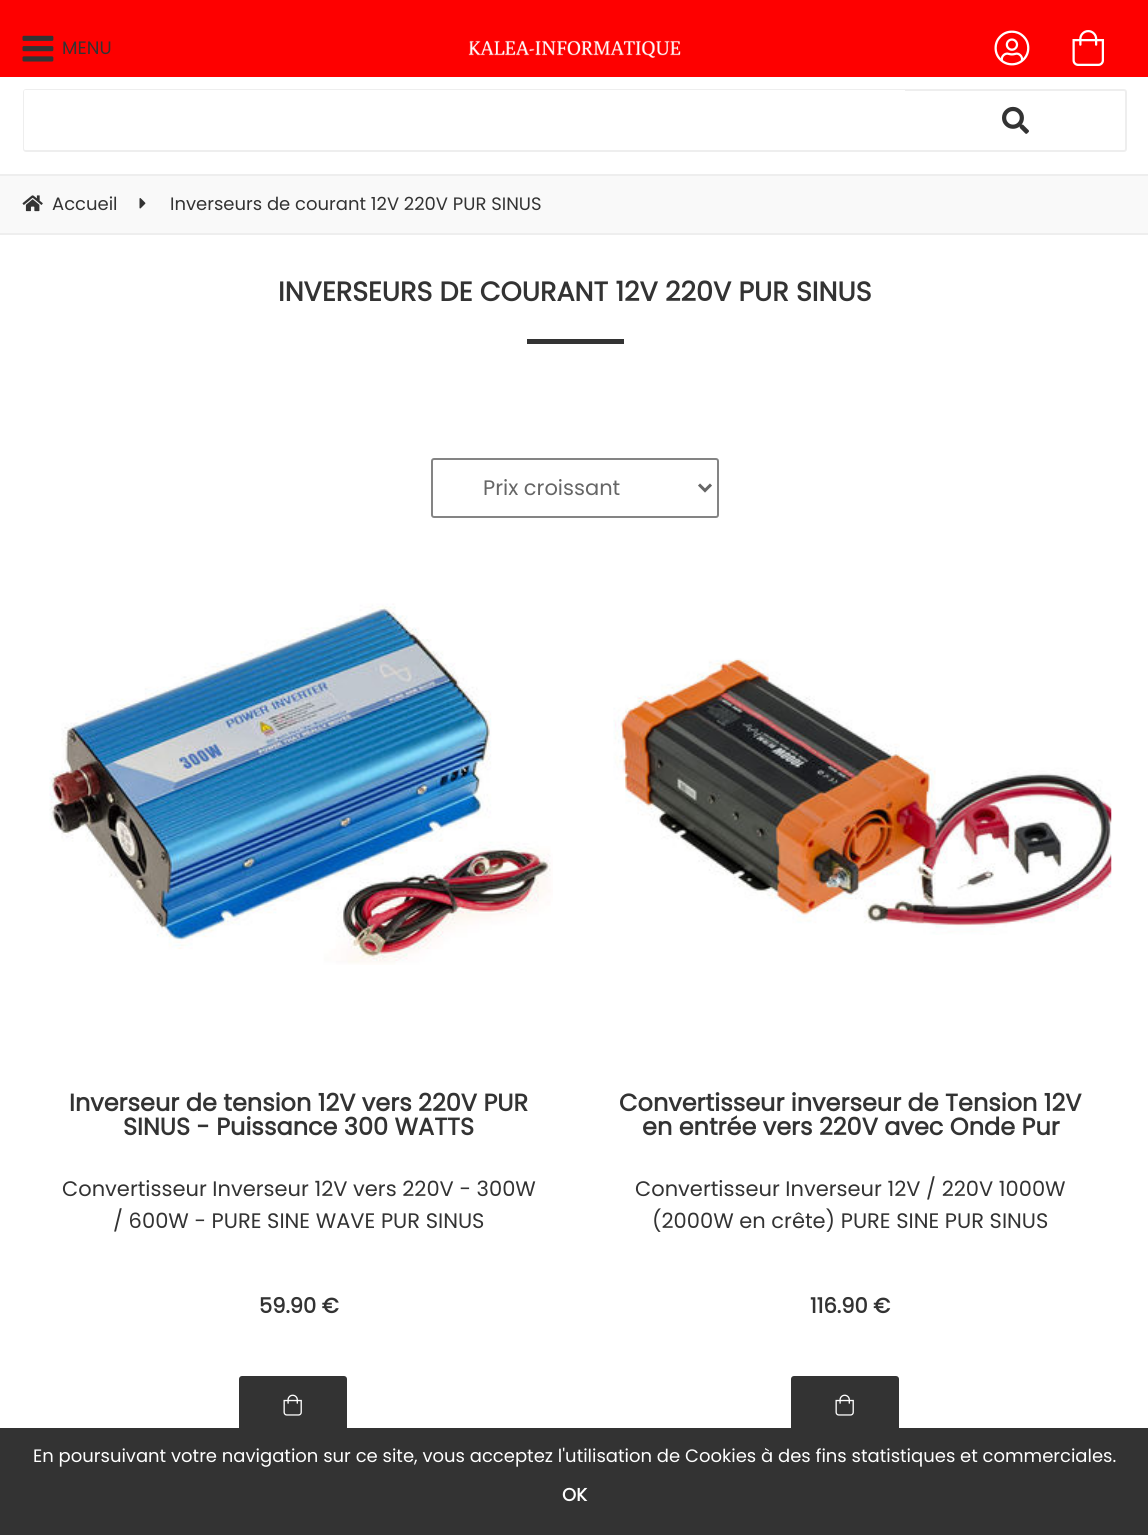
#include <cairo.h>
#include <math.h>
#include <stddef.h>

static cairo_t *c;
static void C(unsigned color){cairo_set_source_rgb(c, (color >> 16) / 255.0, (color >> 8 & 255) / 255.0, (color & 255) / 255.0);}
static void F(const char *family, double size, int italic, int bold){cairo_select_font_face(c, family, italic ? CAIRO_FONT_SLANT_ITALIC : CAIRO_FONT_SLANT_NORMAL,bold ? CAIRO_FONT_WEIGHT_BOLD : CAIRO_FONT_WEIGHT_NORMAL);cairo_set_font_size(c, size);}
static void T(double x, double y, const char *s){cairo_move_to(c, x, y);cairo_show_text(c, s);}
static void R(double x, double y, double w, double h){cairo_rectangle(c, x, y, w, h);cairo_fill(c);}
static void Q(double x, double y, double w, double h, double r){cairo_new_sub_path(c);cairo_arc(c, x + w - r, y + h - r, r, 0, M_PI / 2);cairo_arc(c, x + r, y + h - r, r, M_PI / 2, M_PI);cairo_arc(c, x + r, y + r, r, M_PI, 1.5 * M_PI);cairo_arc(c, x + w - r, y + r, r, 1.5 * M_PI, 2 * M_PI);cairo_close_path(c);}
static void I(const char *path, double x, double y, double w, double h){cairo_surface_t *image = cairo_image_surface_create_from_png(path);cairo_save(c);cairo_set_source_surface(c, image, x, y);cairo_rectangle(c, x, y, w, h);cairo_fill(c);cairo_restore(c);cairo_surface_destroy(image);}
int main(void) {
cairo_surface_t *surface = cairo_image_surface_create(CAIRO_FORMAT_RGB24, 1148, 1535);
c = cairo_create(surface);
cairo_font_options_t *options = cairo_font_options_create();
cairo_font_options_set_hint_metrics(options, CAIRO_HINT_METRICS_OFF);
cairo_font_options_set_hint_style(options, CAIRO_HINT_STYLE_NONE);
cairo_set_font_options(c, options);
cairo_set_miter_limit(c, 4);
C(0xffffff);
cairo_paint(c);
C(0xfe0000);
R(0,0,1148,77);
I("1.png",22,35,32,27);
F("Poppins",18,0,0);
C(0x333333);
T(62,54,"MENU");
I("2.png",468,40,213,18);
I("3.png",994,30,36,36);
I("4.png",1072,30,32,36);
Q(24,90,1102,61,2);
C(0xeeeeee);
cairo_stroke(c);
C(0xffffff);
cairo_new_path(c);
cairo_move_to(c,25.5,90);
cairo_line_to(c,905,90);
cairo_line_to(c,905,150);
cairo_line_to(c,25.5,150);
cairo_curve_to(c,24.5,150,24,149.5,24,148.5);
cairo_line_to(c,24,91.5);
cairo_curve_to(c,24,90.5,24.5,90,25.5,90);
cairo_close_path(c);
cairo_fill(c);
I("5.png",1002,106,27,28);
C(0xf9f9f9);
R(0,176,1148,57);
C(0xeeeeee);
R(0,174,1148,2);
R(0,233,1148,2);
I("6.png",22,195,21,17);
C(0x333333);
T(52,210,"Accueil");
I("7.png",139,198,7,11);
T(170,210,"Inverseurs de courant 12V 220V PUR SINUS");
F("Poppins",27,0,1);
T(278,301,"INVERSEURS DE COURANT 12V 220V PUR SINUS");
R(527,339,97,5);
Q(432,459,286,58,2);
C(0x848484);
cairo_stroke(c);
cairo_new_path(c);
cairo_move_to(c,699,484.5);
cairo_line_to(c,705,490.5);
cairo_line_to(c,711,484.5);
C(0x666666);
cairo_set_line_width(c,3);
cairo_stroke(c);
F("Poppins",21,0,0);
T(483,495,"Prix croissant");
I("8.png",49,603,504,362);
F("Poppins",24,0,1);
C(0x333333);
T(69,1111,"Inverseur de tension 12V vers 220V PUR");
T(123,1135,"SINUS - Puissance 300 WATTS");
F("Poppins",21,0,0);
T(62,1196,"Convertisseur Inverseur 12V vers 220V - 300W");
T(113,1228,"/ 600W - PURE SINE WAVE PUR SINUS");
F("Poppins",21,0,1);
T(259,1313,"59.90 €");
Q(239,1376,108,60,3);
cairo_fill(c);
I("9.png",283,1394,19,22);
I("10.png",613,658,499,277);
F("Poppins",24,0,1);
T(619,1111,"Convertisseur inverseur de Tension 12V");
T(642,1135,"en entrée vers 220V avec Onde Pur");
F("Poppins",21,0,0);
T(635,1196,"Convertisseur Inverseur 12V / 220V 1000W");
T(652,1228,"(2000W en crête) PURE SINE PUR SINUS");
F("Poppins",21,0,1);
T(810,1313,"116.90 €");
Q(791,1376,108,60,3);
cairo_fill(c);
I("9.png",835,1394,19,22);
R(0,1428,1148,107);
F("Poppins",18,0,0);
C(0xffffff);
T(33,1462,"En poursuivant votre navigation sur ce site, vous acceptez l'utilisation de Cookies à des fins statistiques et commerciales.");
F("Poppins",18,0,1);
T(562,1501,"OK");
cairo_surface_write_to_png(surface, "o.png");
cairo_font_options_destroy(options);
cairo_destroy(c);
cairo_surface_destroy(surface);
return 0;
}
